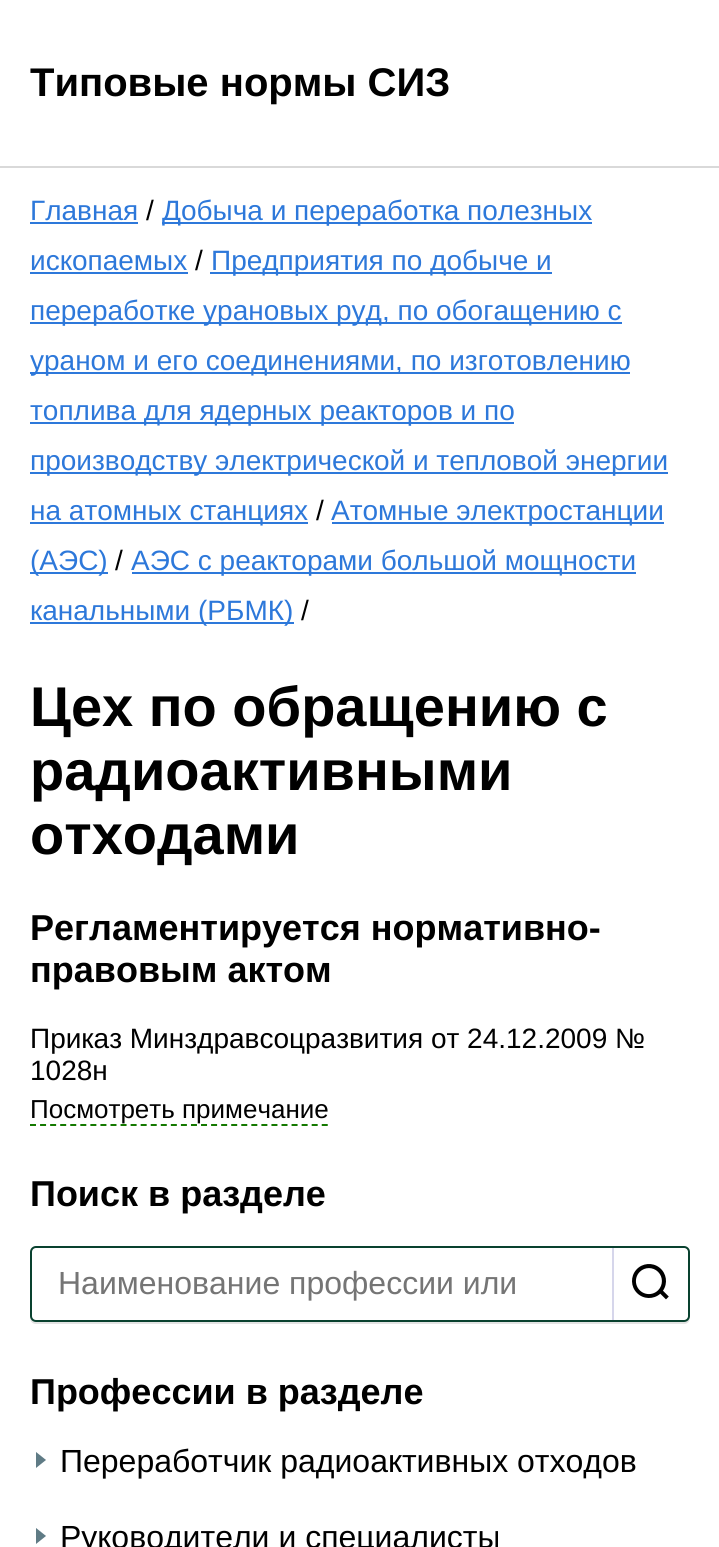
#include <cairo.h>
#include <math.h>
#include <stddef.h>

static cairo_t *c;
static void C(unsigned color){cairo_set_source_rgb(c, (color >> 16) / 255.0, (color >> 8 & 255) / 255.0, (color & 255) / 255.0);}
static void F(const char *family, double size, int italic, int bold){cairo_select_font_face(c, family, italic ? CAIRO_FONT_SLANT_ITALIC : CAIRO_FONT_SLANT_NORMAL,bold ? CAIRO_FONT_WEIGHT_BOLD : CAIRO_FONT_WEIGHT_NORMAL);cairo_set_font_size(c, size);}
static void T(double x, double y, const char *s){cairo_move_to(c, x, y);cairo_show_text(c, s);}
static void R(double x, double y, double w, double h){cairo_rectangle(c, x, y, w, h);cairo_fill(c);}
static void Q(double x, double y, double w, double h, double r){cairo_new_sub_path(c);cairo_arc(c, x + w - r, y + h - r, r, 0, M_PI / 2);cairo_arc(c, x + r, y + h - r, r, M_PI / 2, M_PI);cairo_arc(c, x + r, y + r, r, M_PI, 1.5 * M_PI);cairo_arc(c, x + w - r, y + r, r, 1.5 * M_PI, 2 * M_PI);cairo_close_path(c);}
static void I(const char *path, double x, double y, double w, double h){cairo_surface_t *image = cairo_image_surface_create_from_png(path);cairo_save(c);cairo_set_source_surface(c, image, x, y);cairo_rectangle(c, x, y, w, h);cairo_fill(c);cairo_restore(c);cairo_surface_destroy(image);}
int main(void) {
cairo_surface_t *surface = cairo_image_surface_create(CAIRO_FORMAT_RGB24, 719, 1547);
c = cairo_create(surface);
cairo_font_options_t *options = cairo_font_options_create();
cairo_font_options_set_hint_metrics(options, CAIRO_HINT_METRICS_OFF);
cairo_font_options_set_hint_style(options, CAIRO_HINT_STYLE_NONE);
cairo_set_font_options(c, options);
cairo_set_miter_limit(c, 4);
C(0xffffff);
cairo_paint(c);
C(0xd9d9d9);
R(0,166,719,2);
F("Liberation Sans",40,0,1);
C(0x000000);
T(30,96,"Типовые нормы СИЗ");
F("Liberation Sans",28,0,0);
C(0x2d78da);
T(30,220,"Главная");
R(30,222,108,2);
C(0x000000);
T(146,220,"/");
C(0x2d78da);
R(162,222,430,2);
T(162,220,"Добыча и переработка полезных");
T(30,270,"ископаемых");
R(30,272,158,2);
C(0x000000);
T(195,270,"/");
C(0x2d78da);
R(210,272,342,2);
T(211,270,"Предприятия по добыче и");
R(30,322,592,2);
T(30,320,"переработке урановых руд, по обогащению с");
R(30,372,600,2);
T(30,370,"ураном и его соединениями, по изготовлению");
R(30,422,484,2);
T(30,420,"топлива для ядерных реакторов и по");
R(30,472,638,2);
T(30,470,"производству электрической и тепловой энергии");
R(30,522,278,2);
T(30,520,"на атомных станциях");
C(0x000000);
T(316,520,"/");
C(0x2d78da);
R(332,522,332,2);
T(331,520,"Атомные электростанции");
R(30,572,78,2);
T(30,570,"(АЭС)");
C(0x000000);
T(115,570,"/");
C(0x2d78da);
R(132,572,504,2);
T(131,570,"АЭС с реакторами большой мощности");
R(30,622,264,2);
T(30,620,"канальными (РБМК)");
C(0x000000);
T(301,620,"/");
F("Liberation Sans",56,0,1);
T(30,726,"Цех по обращению с");
T(30,790,"радиоактивными");
T(30,854,"отходами");
F("Liberation Sans",36,0,1);
T(30,940,"Регламентируется нормативно-");
T(30,982,"правовым актом");
F("Liberation Sans",28,0,0);
T(30,1048,"Приказ Минздравсоцразвития от 24.12.2009 №");
T(30,1080,"1028н");
F("Liberation Sans",26,0,0);
T(30,1118,"Посмотреть примечание");
cairo_new_path(c);
cairo_move_to(c,30,1125);
cairo_line_to(c,328,1125);
C(0x147900);
cairo_set_dash(c,(double[]){6,4.06},2,0);
cairo_stroke(c);
F("Liberation Sans",36,0,1);
C(0x000000);
T(30,1206,"Поиск в разделе");
C(0xe3e3e3);
cairo_new_path(c);
cairo_move_to(c,30,1316);
cairo_curve_to(c,30,1320,31,1324,36,1324);
cairo_line_to(c,684,1324);
cairo_curve_to(c,689,1324,690,1320,690,1316);
cairo_curve_to(c,690,1319,687,1322,684,1322);
cairo_line_to(c,36,1322);
cairo_curve_to(c,33,1322,30,1319,30,1316);
cairo_close_path(c);
cairo_fill(c);
C(0xffffff);
Q(31,1247,658,74,5);
cairo_fill_preserve(c);
C(0x09412f);
cairo_set_dash(c,NULL,0,0);
cairo_stroke(c);
F("Liberation Sans",32,0,0);
C(0x757575);
T(58,1294,"Наименование профессии или");
C(0xffffff);
cairo_new_path(c);
cairo_move_to(c,612,1248);
cairo_line_to(c,682,1248);
cairo_curve_to(c,685.5,1248,688,1250.5,688,1254);
cairo_line_to(c,688,1314);
cairo_curve_to(c,688,1317.5,685.5,1320,682,1320);
cairo_line_to(c,612,1320);
cairo_close_path(c);
cairo_fill(c);
I("1.png",632,1264,37,36);
C(0xd6d6eb);
R(612,1248,2,72);
F("Liberation Sans",36,0,1);
C(0x000000);
T(30,1404,"Профессии в разделе");
C(0x5f7b85);
cairo_new_path(c);
cairo_move_to(c,36,1468);
cairo_line_to(c,36,1452);
cairo_line_to(c,46,1460);
cairo_close_path(c);
cairo_fill(c);
F("Liberation Sans",32,0,0);
C(0x000000);
T(60,1472,"Переработчик радиоактивных отходов");
C(0x5f7b85);
cairo_new_path(c);
cairo_move_to(c,36,1544);
cairo_line_to(c,36,1528);
cairo_line_to(c,46,1536);
cairo_close_path(c);
cairo_fill(c);
C(0x000000);
T(60,1548,"Руководители и специалисты");
cairo_surface_write_to_png(surface, "o.png");
cairo_font_options_destroy(options);
cairo_destroy(c);
cairo_surface_destroy(surface);
return 0;
}
